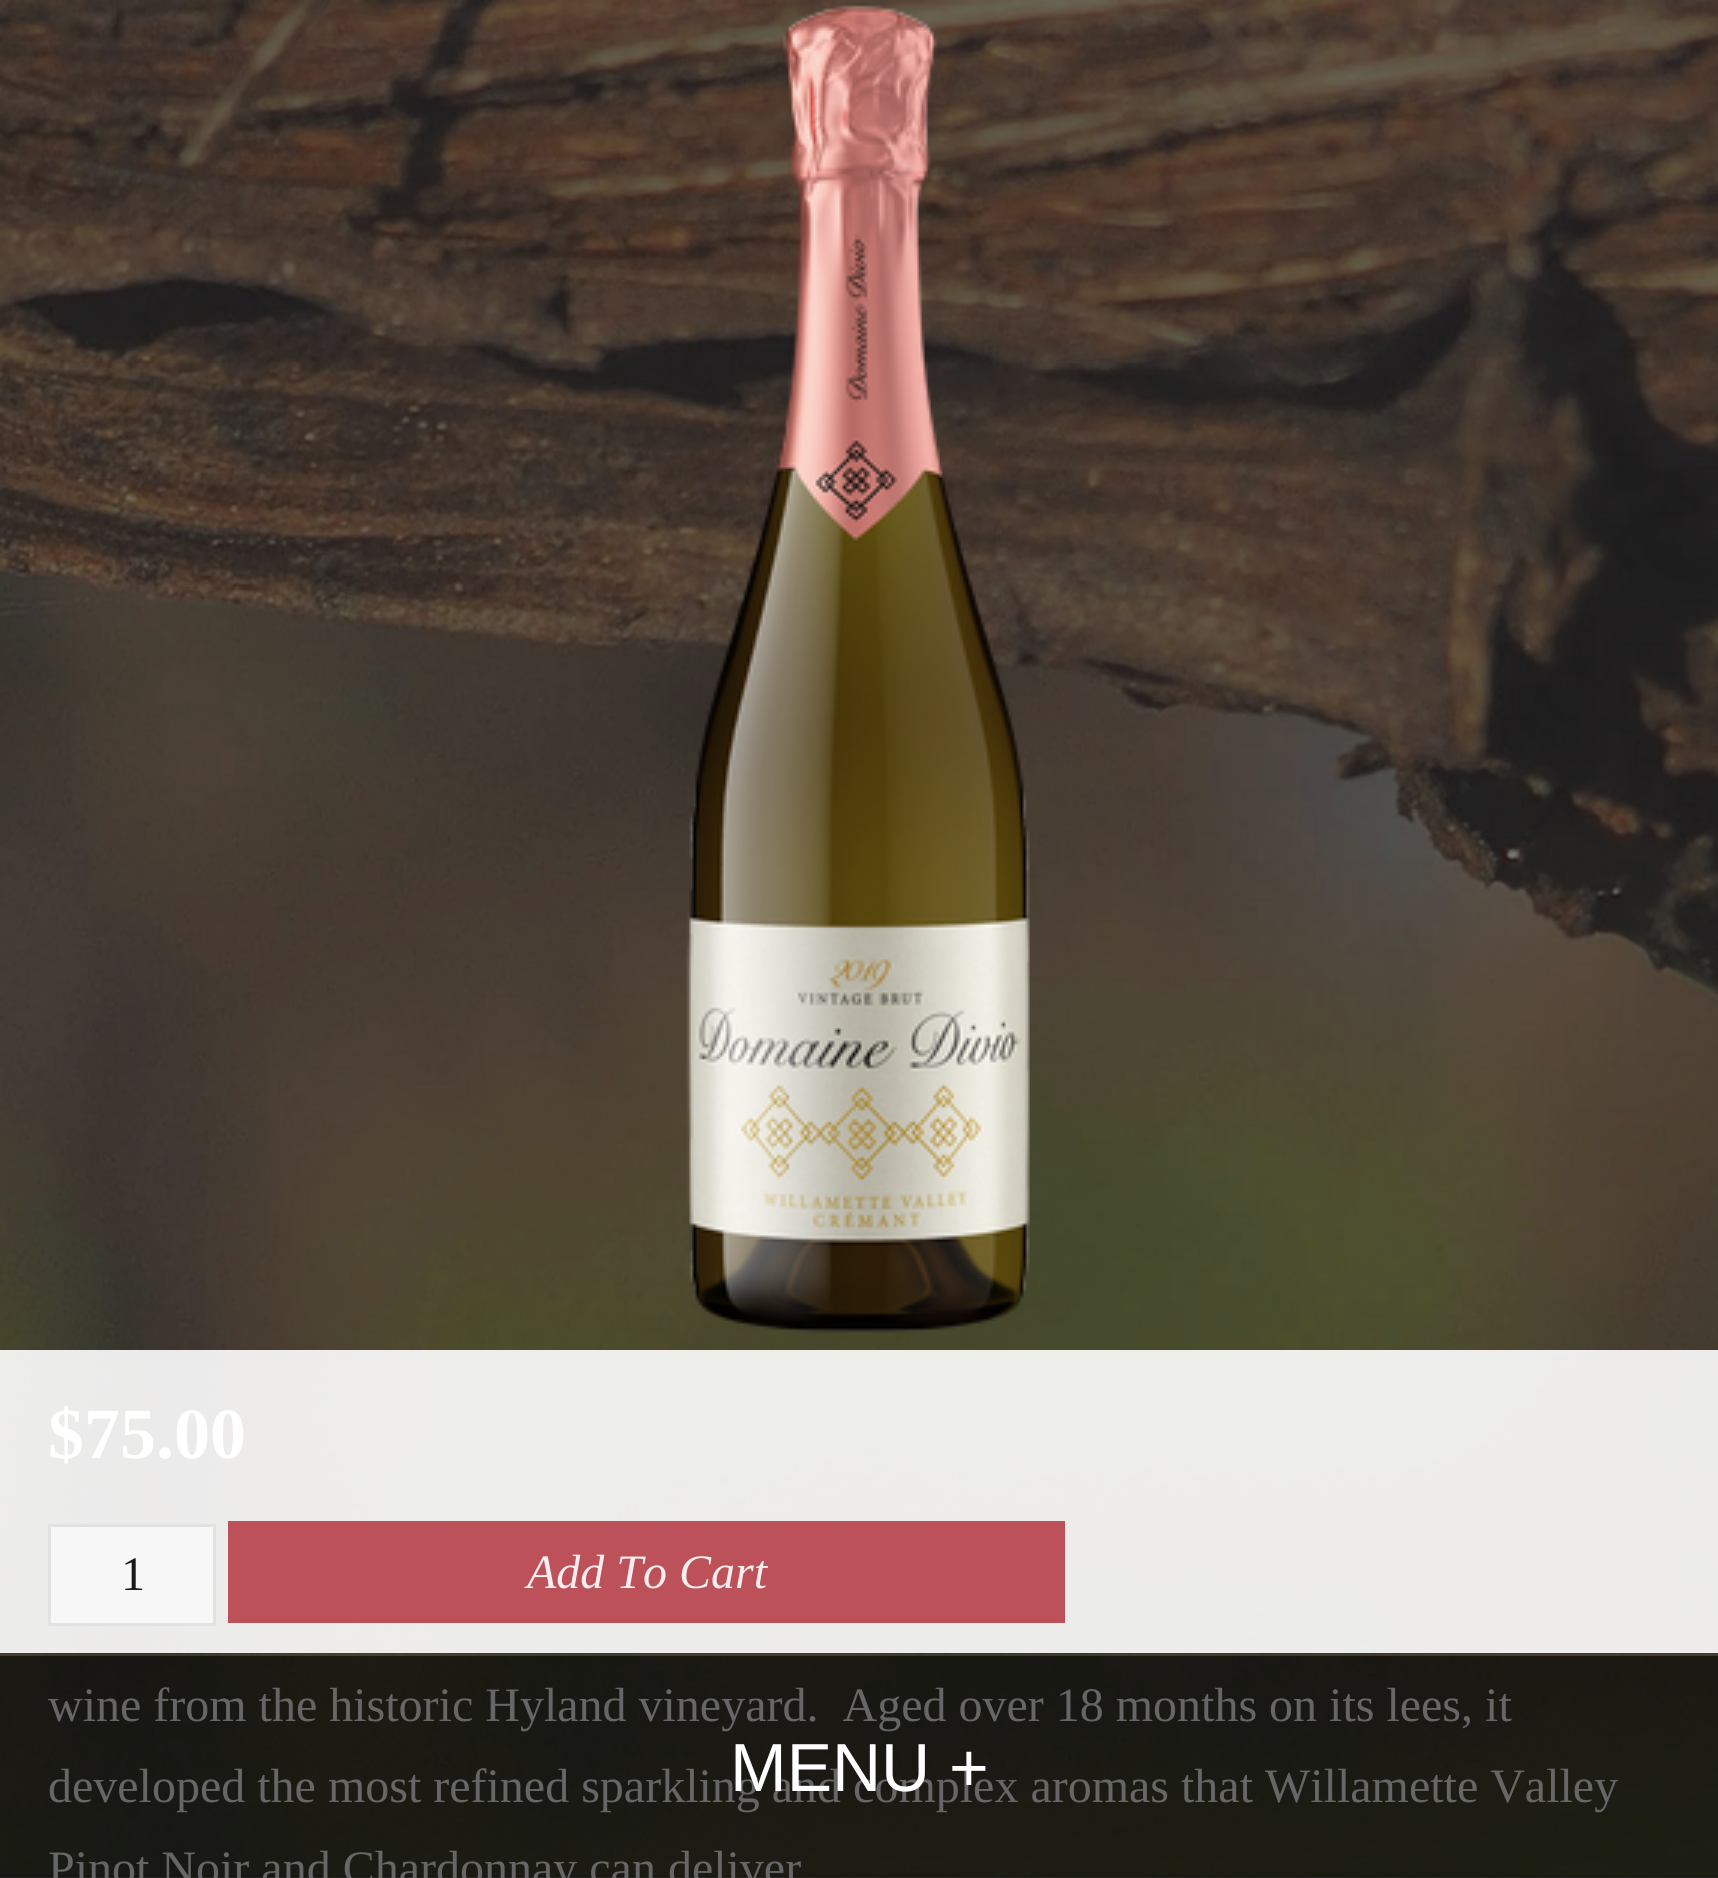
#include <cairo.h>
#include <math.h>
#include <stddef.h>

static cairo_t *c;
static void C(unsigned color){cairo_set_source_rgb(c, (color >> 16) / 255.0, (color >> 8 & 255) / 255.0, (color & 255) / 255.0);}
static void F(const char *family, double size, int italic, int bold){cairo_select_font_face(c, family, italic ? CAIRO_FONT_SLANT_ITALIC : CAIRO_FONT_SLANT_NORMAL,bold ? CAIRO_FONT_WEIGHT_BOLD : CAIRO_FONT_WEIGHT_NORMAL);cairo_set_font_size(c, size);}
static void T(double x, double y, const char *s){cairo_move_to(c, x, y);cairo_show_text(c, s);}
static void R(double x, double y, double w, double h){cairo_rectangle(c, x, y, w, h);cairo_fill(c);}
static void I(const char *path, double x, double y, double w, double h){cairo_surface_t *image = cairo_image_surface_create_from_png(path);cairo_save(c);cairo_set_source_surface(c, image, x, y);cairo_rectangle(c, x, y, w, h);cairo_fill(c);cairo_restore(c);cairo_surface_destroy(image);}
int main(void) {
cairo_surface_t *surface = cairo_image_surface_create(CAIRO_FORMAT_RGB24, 1718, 1878);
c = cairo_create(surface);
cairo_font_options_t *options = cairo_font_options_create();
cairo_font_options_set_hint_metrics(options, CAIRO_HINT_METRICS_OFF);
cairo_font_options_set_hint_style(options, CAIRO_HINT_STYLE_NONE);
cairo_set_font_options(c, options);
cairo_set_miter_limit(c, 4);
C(0xffffff);
cairo_paint(c);
I("1.png",0,0,1718,1878);
I("2.png",686,0,344,1334);
cairo_set_source_rgba(c,1,1,1,0.9);
R(0,1350,1718,303);
F("Liberation Serif",72,0,1);
C(0xffffff);
T(48,1458,"$75.00");
cairo_set_source_rgba(c,0.973,0.973,0.973,0.9);
cairo_rectangle(c,49.5,1525.5,165,99);
cairo_fill_preserve(c);
C(0xe2e2e2);
cairo_set_line_width(c,3);
cairo_stroke(c);
F("Liberation Serif",48,0,0);
C(0x191919);
T(121,1590,"1");
cairo_set_source_rgba(c,0.722,0.255,0.294,0.9);
R(228,1521,837,102);
F("Liberation Serif",48,1,0);
C(0xf8eeef);
T(527,1588,"Add To Cart");
F("Liberation Serif",48,0,0);
C(0xffffff);
T(48,1721,"wine from the historic Hyland vineyard.  Aged over 18 months on its lees, it");
T(48,1802,"developed the most refined sparkling and complex aromas that Willamette Valley");
T(48,1884,"Pinot Noir and Chardonnay can deliver");
cairo_set_source_rgba(c,0,0,0,0.6);
R(0,1656,1718,222);
F("Liberation Sans",68,0,0);
C(0xffffff);
T(730,1791,"MENU +");
cairo_surface_write_to_png(surface, "o.png");
cairo_font_options_destroy(options);
cairo_destroy(c);
cairo_surface_destroy(surface);
return 0;
}
